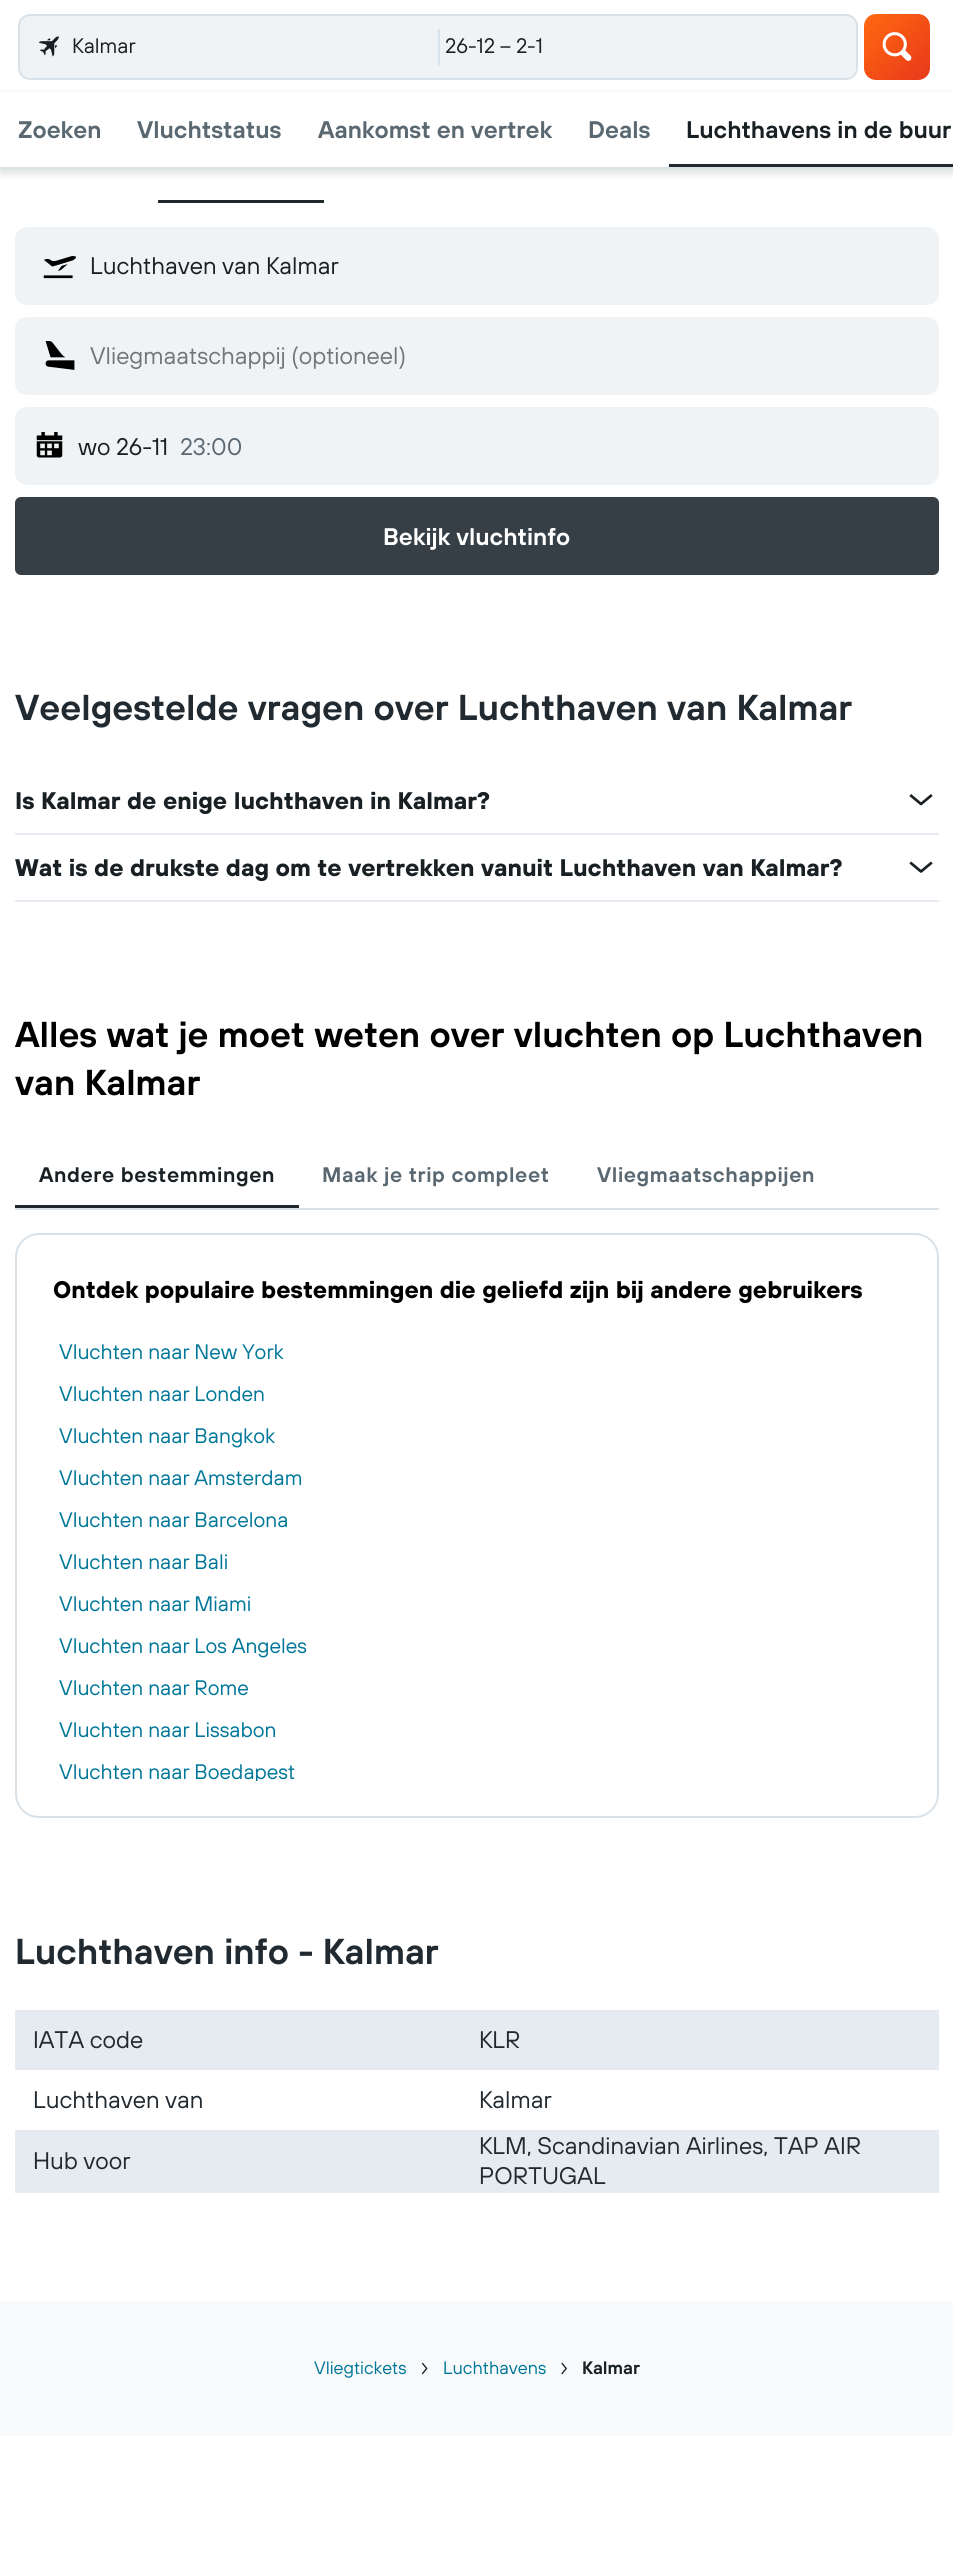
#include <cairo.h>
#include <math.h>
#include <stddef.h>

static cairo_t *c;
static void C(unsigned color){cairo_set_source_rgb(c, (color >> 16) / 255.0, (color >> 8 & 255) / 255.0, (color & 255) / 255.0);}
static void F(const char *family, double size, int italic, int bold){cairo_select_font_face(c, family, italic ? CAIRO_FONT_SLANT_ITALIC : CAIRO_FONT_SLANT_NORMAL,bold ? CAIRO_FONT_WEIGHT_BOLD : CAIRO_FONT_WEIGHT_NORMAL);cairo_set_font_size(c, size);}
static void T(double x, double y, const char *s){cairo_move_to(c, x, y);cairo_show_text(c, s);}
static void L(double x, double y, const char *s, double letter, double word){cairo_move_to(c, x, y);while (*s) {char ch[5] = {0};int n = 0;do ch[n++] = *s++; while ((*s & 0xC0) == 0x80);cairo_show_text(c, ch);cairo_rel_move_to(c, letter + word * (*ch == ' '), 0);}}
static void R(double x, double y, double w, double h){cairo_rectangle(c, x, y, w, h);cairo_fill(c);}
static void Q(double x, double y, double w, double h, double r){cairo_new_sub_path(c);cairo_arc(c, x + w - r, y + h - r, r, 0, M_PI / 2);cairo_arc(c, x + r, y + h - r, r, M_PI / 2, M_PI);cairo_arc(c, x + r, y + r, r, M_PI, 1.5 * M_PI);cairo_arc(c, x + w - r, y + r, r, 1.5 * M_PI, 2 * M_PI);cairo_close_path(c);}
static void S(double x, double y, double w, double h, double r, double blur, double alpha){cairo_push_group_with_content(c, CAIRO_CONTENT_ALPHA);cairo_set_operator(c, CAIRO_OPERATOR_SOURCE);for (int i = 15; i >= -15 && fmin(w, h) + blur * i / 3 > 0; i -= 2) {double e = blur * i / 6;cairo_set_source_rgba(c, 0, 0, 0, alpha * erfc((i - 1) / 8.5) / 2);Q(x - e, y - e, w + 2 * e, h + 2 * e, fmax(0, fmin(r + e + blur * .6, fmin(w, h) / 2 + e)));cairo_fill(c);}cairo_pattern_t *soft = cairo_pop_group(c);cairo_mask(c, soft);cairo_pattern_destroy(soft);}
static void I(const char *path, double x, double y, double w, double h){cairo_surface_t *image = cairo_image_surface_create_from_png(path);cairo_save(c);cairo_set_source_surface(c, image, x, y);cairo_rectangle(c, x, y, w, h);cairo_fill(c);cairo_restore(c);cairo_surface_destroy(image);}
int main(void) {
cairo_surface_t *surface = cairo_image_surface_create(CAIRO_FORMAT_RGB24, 953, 2556);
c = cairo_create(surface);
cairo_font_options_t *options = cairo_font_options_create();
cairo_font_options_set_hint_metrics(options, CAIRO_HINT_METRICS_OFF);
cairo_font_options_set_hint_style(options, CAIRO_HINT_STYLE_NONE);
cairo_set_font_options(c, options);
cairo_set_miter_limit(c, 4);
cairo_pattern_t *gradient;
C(0xffffff);
cairo_paint(c);
C(0xf0f3f5);
Q(19,15,838,64,11);
cairo_fill_preserve(c);
C(0xd9e2e8);
cairo_stroke(c);
I("1.png",38,36,21,21);
F("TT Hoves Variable",21,0,0);
C(0x192024);
T(72,53,"Kalmar");
C(0xd9e2e8);
R(438,29,2,36);
C(0x192024);
T(445,53,"26-12 – 2-1");
gradient = cairo_pattern_create_linear(864,14,930,80);
cairo_pattern_add_color_stop_rgba(gradient,0,1,0.412,0.059,1);
cairo_pattern_add_color_stop_rgba(gradient,1,0.91,0.22,0.106,1);
cairo_set_source(c,gradient);
cairo_pattern_destroy(gradient);
Q(864,14,66,66,12);
cairo_fill(c);
I("2.png",882,32,30,29);
C(0x192024);
S(0,96,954,77,0,4.5,.16);
C(0xffffff);
R(0,92,953,75);
C(0xd9e2e8);
R(0,167,953,2);
F("TT Hoves Variable SemiBold",24,0,0);
C(0x5a6872);
T(18,138,"Zoeken");
T(137,138,"Vluchtstatus");
T(318,138,"Aankomst en vertrek");
T(588,138,"Deals");
C(0x1f282d);
R(669,164,284,3);
C(0x192024);
T(686,138,"Luchthavens in de buur");
C(0x1f282d);
R(158,200,166,3);
C(0xf0f3f5);
Q(16,228,922,76,11);
cairo_fill_preserve(c);
cairo_stroke(c);
I("3.png",43,256,34,23);
F("TT Hoves Variable",24,0,0);
C(0x192024);
T(90,274,"Luchthaven van Kalmar");
C(0xf0f3f5);
Q(16,318,922,76,11);
cairo_fill_preserve(c);
cairo_stroke(c);
I("4.png",45,341,30,29);
C(0x757575);
T(90,364,"Vliegmaatschappij (optioneel)");
C(0xf0f3f5);
Q(16,408,922,76,11);
cairo_fill_preserve(c);
cairo_stroke(c);
I("5.png",36,432,27,26);
C(0x192024);
T(78,455,"wo 26-11");
C(0x5a6872);
T(180,455,"23:00");
C(0x363f45);
Q(15,497,924,78,6);
cairo_fill(c);
F("TT Hoves Variable SemiBold",24,0,0);
C(0xffffff);
T(383,545,"Bekijk vluchtinfo");
F("TT Hoves Variable SemiBold",36,0,0);
C(0x212a30);
T(15,720,"Veelgestelde vragen over Luchthaven van Kalmar");
C(0xe5ebf0);
R(15,833,924,2);
F("TT Hoves Variable",24,0,1);
C(0x192024);
T(15,809,"Is Kalmar de enige luchthaven in Kalmar?");
I("6.png",909,794,24,12);
C(0xe5ebf0);
R(15,900,924,2);
C(0x192024);
T(15,876,"Wat is de drukste dag om te vertrekken vanuit Luchthaven van Kalmar?");
I("7.png",909,861,24,12);
F("TT Hoves Variable SemiBold",36,0,0);
C(0x000000);
T(15,1047,"Alles wat je moet weten over vluchten op Luchthaven");
T(15,1095,"van Kalmar");
F("TT Hoves Variable SemiBold",21,0,0);
C(0x192024);
L(39,1182,"Andere bestemmingen",.6,0);
C(0x1f282d);
R(15,1205,284,3);
C(0x5a6872);
L(322,1182,"Maak je trip compleet",.6,0);
L(597,1182,"Vliegmaatschappijen",.6,0);
C(0xd9e2e8);
R(15,1208,924,2);
Q(16,1234,922,583,23);
cairo_stroke(c);
F("TT Hoves Variable",24,0,1);
C(0x000000);
T(53,1298,"Ontdek populaire bestemmingen die geliefd zijn bij andere gebruikers");
F("TT Hoves Variable",21,0,0);
C(0x007799);
T(59,1359,"Vluchten naar New York");
T(59,1401,"Vluchten naar Londen");
T(59,1443,"Vluchten naar Bangkok");
T(59,1485,"Vluchten naar Amsterdam");
T(59,1527,"Vluchten naar Barcelona");
T(59,1569,"Vluchten naar Bali");
T(59,1611,"Vluchten naar Miami");
T(59,1653,"Vluchten naar Los Angeles");
T(59,1695,"Vluchten naar Rome");
T(59,1737,"Vluchten naar Lissabon");
cairo_save(c);
cairo_rectangle(c,53,1331,849,450);
cairo_clip(c);
T(59,1779,"Vluchten naar Boedapest");
cairo_restore(c);
F("TT Hoves Variable SemiBold",36,0,0);
C(0x212a30);
T(15,1964,"Luchthaven info - Kalmar");
C(0xe5ebf0);
R(15,2010,924,183);
F("TT Hoves Variable",24,0,0);
C(0x212a30);
T(33,2048,"IATA code");
T(479,2048,"KLR");
C(0xffffff);
R(15,2070,924,60);
C(0x212a30);
T(33,2108,"Luchthaven van");
T(479,2108,"Kalmar");
T(33,2169,"Hub voor");
T(479,2154,"KLM, Scandinavian Airlines, TAP AIR");
T(479,2184,"PORTUGAL");
C(0xf9fafb);
R(0,2301,953,135);
F("TT Hoves Variable",18,0,0);
C(0x007799);
T(314,2374,"Vliegtickets");
I("8.png",421,2362,7,13);
T(443,2374,"Luchthavens");
I("9.png",561,2362,6,13);
F("TT Hoves Variable SemiBold",18,0,0);
C(0x192024);
T(582,2374,"Kalmar");
cairo_surface_write_to_png(surface, "o.png");
cairo_font_options_destroy(options);
cairo_destroy(c);
cairo_surface_destroy(surface);
return 0;
}
